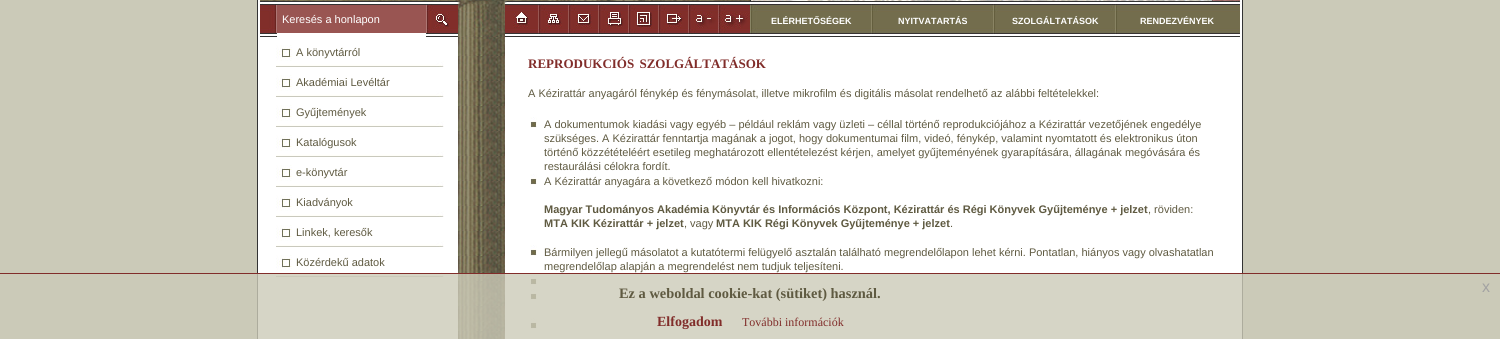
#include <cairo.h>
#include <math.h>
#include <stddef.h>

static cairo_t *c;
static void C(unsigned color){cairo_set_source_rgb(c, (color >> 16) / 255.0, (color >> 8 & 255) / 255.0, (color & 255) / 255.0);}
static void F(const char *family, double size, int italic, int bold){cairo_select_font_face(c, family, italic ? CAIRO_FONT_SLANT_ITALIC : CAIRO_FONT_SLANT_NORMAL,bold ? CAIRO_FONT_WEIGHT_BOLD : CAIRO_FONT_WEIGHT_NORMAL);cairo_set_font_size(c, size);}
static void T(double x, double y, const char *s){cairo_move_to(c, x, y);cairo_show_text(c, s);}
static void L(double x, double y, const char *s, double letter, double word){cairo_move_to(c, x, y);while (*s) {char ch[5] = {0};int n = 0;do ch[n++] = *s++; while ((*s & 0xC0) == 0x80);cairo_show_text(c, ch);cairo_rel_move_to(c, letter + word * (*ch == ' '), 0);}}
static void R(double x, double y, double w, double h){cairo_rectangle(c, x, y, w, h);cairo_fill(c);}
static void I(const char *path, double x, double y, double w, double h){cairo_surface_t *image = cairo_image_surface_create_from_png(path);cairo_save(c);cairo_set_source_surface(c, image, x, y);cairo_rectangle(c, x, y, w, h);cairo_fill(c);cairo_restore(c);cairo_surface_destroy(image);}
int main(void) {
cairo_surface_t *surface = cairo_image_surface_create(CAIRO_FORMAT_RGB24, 1500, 339);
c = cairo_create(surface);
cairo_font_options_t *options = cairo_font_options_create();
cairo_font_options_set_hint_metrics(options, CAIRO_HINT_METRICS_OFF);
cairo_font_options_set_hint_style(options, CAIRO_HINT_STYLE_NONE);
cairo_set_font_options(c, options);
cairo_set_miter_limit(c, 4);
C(0xcbcab8);
cairo_paint(c);
I("1.png",257,0,986,339);
I("2.png",260,0,245,1);
I("3.png",505,0,245,1);
I("4.png",750,0,490,1);
I("5.png",259,1,982,3);
I("6.png",260,4,17,33);
C(0x333333);
R(277,4,149,1);
C(0x995552);
R(277,5,149,28);
F("Liberation Sans",11,0,0);
C(0xffffff);
T(282,23,"Keresés a honlapon");
I("7.png",426,4,32,33);
I("8.png",458,4,47,33);
I("9.png",505,4,33,33);
I("10.png",538,4,30,33);
I("11.png",568,4,30,33);
I("12.png",598,4,30,33);
I("13.png",628,4,30,33);
I("14.png",658,4,30,33);
I("15.png",688,4,30,33);
I("16.png",718,4,32,33);
I("17.png",750,4,490,33);
F("Liberation Sans",9,0,1);
T(771,24,"ELÉRHETŐSÉGEK");
T(898,24,"NYITVATARTÁS");
T(1012,24,"SZOLGÁLTATÁSOK");
T(1140,24,"RENDEZVÉNYEK");
I("18.png",276,41,182,26);
F("Liberation Sans",11,0,0);
C(0x5f5a41);
T(296,56,"A könyvtárról");
I("19.png",276,67,182,30);
T(296,86,"Akadémiai Levéltár");
I("20.png",276,105,182,22);
T(296,116,"Gyűjtemények");
I("20.png",276,135,182,22);
T(296,146,"Katalógusok");
I("20.png",276,165,182,22);
T(296,176,"e-könyvtár");
I("18.png",276,191,182,26);
T(296,206,"Kiadványok");
I("19.png",276,217,182,30);
T(296,236,"Linkek, keresők");
I("20.png",276,255,182,22);
T(296,266,"Közérdekű adatok");
F("Liberation Serif",13,0,1);
C(0x812d2a);
L(528,68,"REPRODUKCIÓS SZOLGÁLTATÁSOK",0,2);
F("Liberation Sans",11,0,0);
C(0x5f5a41);
T(528,97,"A Kézirattár anyagáról fénykép és fénymásolat, illetve mikrofilm és digitális másolat rendelhető az alábbi feltételekkel:");
I("21.png",530,117,7,11);
T(544,128,"A dokumentumok kiadási vagy egyéb – például reklám vagy üzleti – céllal történő reprodukciójához a Kézirattár vezetőjének engedélye");
T(544,142,"szükséges. A Kézirattár fenntartja magának a jogot, hogy dokumentumai film, videó, fénykép, valamint nyomtatott és elektronikus úton");
T(544,156,"történő közzétételéért esetileg meghatározott ellentételezést kérjen, amelyet gyűjteményének gyarapítására, állagának megóvására és");
T(544,170,"restaurálási célokra fordít.");
I("21.png",530,174,7,11);
T(544,185,"A Kézirattár anyagára a következő módon kell hivatkozni:");
F("Liberation Sans",11,0,1);
T(544,213,"Magyar Tudományos Akadémia Könyvtár és Információs Központ, Kézirattár és Régi Könyvek Gyűjteménye + jelzet");
F("Liberation Sans",11,0,0);
T(1148,213,", röviden:");
F("Liberation Sans",11,0,1);
T(544,227,"MTA KIK Kézirattár + jelzet");
F("Liberation Sans",11,0,0);
T(684,227,", vagy");
F("Liberation Sans",11,0,1);
T(716,227,"MTA KIK Régi Könyvek Gyűjteménye + jelzet");
F("Liberation Sans",11,0,0);
T(950,227,".");
I("21.png",530,245,7,11);
T(544,256,"Bármilyen jellegű másolatot a kutatótermi felügyelő asztalán található megrendelőlapon lehet kérni. Pontatlan, hiányos vagy olvashatatlan");
T(544,270,"megrendelőlap alapján a megrendelést nem tudjuk teljesíteni.");
I("21.png",530,274,7,11);
I("21.png",530,289,7,11);
I("21.png",530,318,7,11);
cairo_set_source_rgba(c,0.796,0.792,0.722,0.8);
R(257,274,986,65);
C(0x812d2a);
R(0,273,1500,1);
F("Liberation Serif",14.4,0,1);
C(0x5f5a41);
T(619,298,"Ez a weboldal cookie-kat (sütiket) használ.");
F("Liberation Sans",16,0,0);
C(0xa2a2a2);
T(1482,292,"x");
F("Liberation Serif",14,0,1);
C(0x812d2a);
T(657,326,"Elfogadom");
F("Liberation Serif",12,0,0);
T(742,326,"További információk");
cairo_surface_write_to_png(surface, "o.png");
cairo_font_options_destroy(options);
cairo_destroy(c);
cairo_surface_destroy(surface);
return 0;
}
